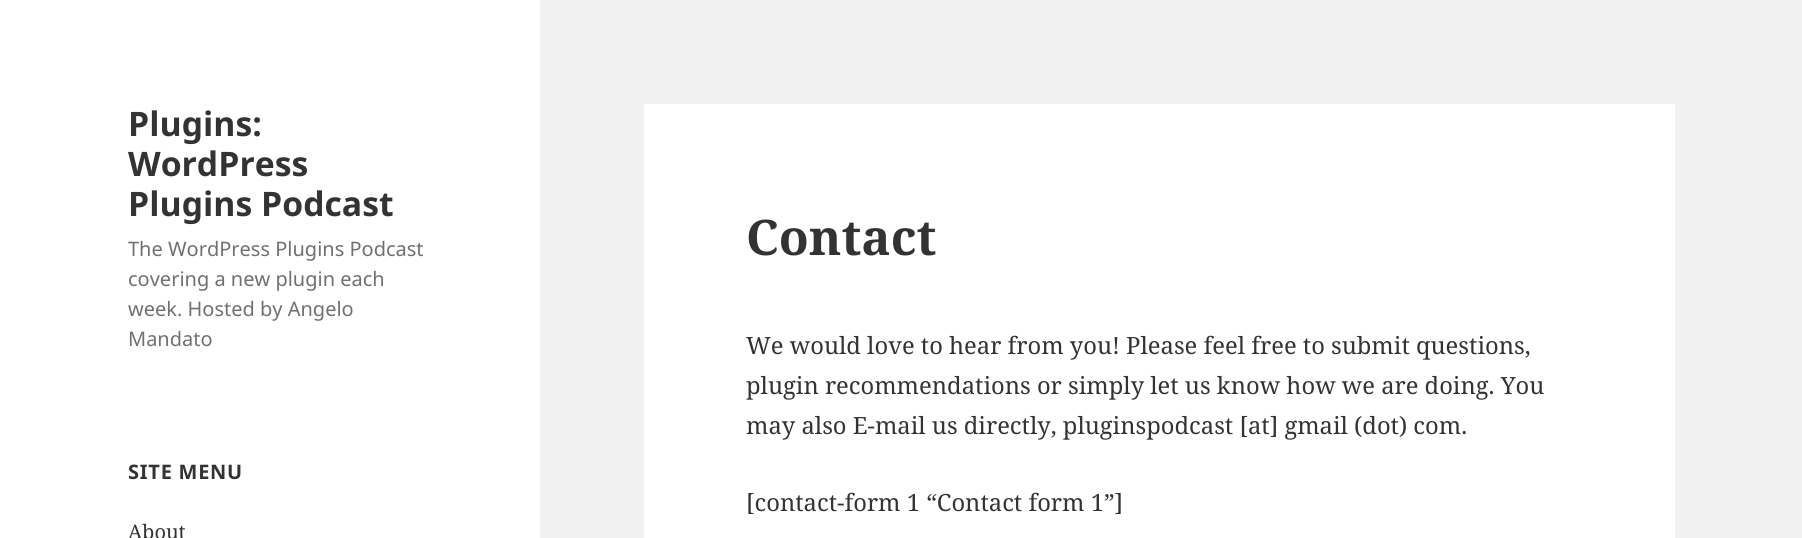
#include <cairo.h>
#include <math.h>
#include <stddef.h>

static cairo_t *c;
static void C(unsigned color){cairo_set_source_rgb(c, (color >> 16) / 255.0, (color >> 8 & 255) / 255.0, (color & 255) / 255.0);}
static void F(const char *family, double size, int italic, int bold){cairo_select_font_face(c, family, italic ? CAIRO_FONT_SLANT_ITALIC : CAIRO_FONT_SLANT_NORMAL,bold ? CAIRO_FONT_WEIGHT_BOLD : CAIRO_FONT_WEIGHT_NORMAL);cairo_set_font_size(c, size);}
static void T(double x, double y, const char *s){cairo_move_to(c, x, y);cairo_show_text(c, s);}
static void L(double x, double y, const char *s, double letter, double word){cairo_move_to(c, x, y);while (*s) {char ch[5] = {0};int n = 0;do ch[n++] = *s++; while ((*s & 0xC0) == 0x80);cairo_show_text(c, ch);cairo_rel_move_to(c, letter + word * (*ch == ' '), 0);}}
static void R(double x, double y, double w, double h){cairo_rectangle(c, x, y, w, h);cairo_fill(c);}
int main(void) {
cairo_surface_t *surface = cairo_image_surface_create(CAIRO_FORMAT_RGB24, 1802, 538);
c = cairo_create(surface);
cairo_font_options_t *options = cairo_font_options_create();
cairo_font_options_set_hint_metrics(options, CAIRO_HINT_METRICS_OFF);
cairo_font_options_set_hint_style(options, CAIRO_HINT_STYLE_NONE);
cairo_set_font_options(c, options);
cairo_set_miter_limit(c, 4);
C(0xf1f1f1);
cairo_paint(c);
C(0xffffff);
R(0,0,540,538);
F("Noto Sans",33.75,0,1);
C(0x333333);
T(128,136,"Plugins:");
T(128,176,"WordPress");
T(128,216,"Plugins Podcast");
F("Noto Sans",20,0,0);
C(0x707070);
T(128,256,"The WordPress Plugins Podcast");
T(128,286,"covering a new plugin each");
T(128,316,"week. Hosted by Angelo");
T(128,346,"Mandato");
F("Noto Sans",20,0,1);
C(0x333333);
L(128,479,"SITE MENU",.75,0);
F("Noto Serif",20,0,0);
T(128,539,"About");
C(0xffffff);
R(644,104,1031,434);
F("Noto Serif",49,0,1);
C(0x333333);
T(746,255,"Contact");
F("Noto Serif",23.75,0,0);
T(746,354,"We would love to hear from you! Please feel free to submit questions,");
T(746,394,"plugin recommendations or simply let us know how we are doing. You");
T(746,434,"may also E-mail us directly, pluginspodcast [at] gmail (dot) com.");
T(746,511,"[contact-form 1 “Contact form 1”]");
cairo_surface_write_to_png(surface, "o.png");
cairo_font_options_destroy(options);
cairo_destroy(c);
cairo_surface_destroy(surface);
return 0;
}
